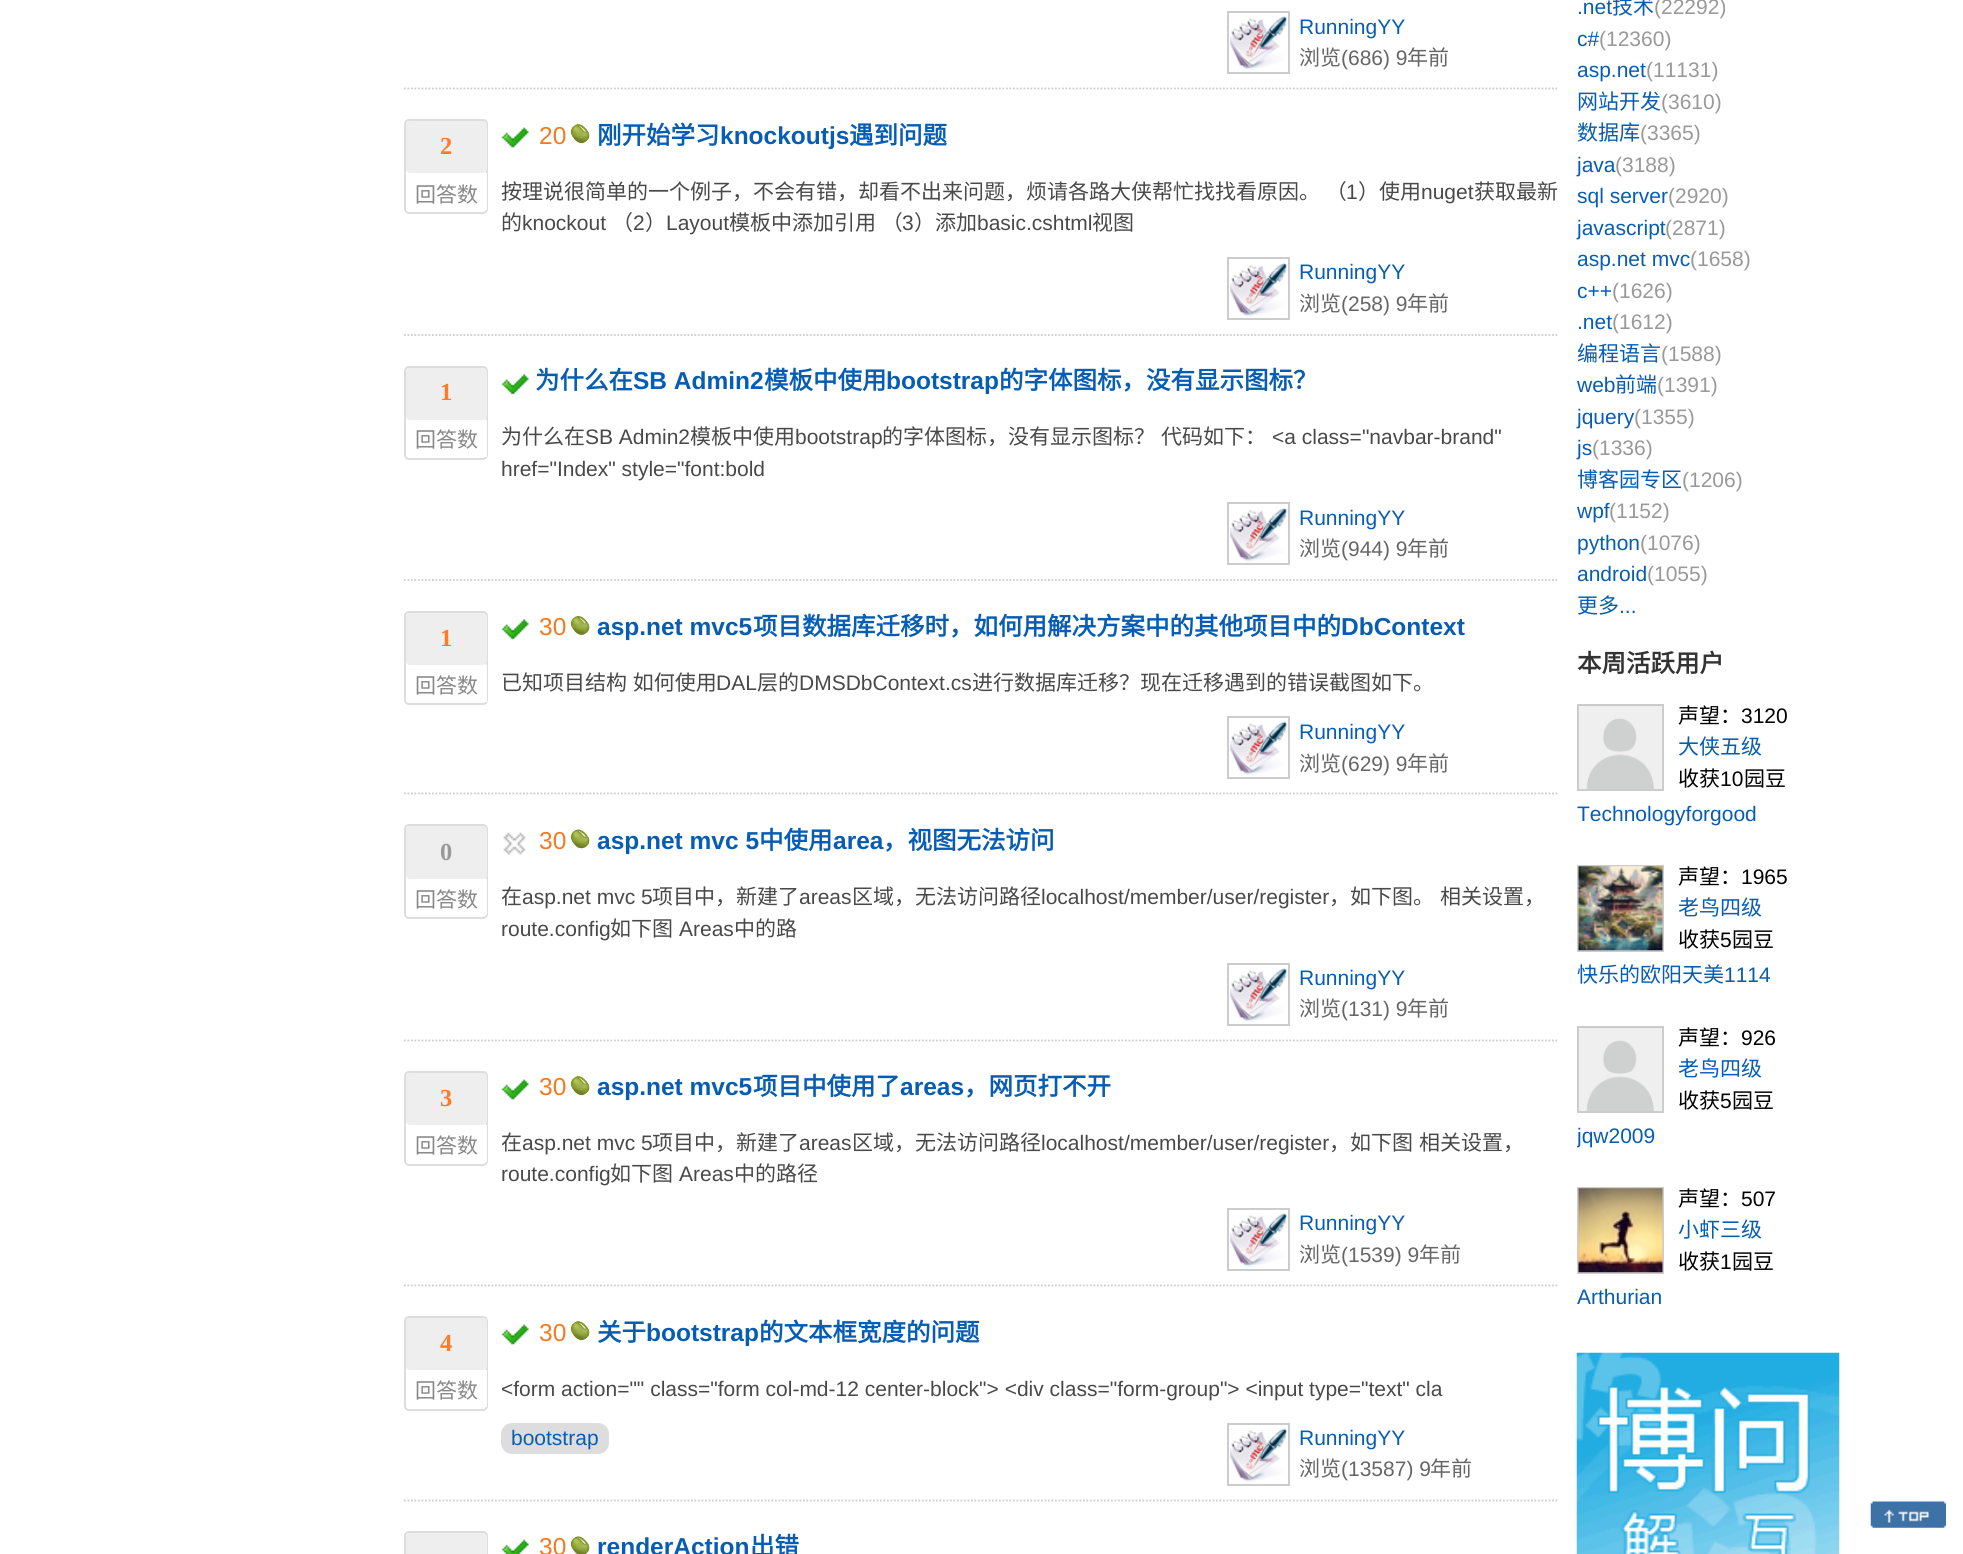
#include <cairo.h>
#include <math.h>
#include <stddef.h>

static cairo_t *c;
static void C(unsigned color){cairo_set_source_rgb(c, (color >> 16) / 255.0, (color >> 8 & 255) / 255.0, (color & 255) / 255.0);}
static void F(const char *family, double size, int italic, int bold){cairo_select_font_face(c, family, italic ? CAIRO_FONT_SLANT_ITALIC : CAIRO_FONT_SLANT_NORMAL,bold ? CAIRO_FONT_WEIGHT_BOLD : CAIRO_FONT_WEIGHT_NORMAL);cairo_set_font_size(c, size);}
static void T(double x, double y, const char *s){cairo_move_to(c, x, y);cairo_show_text(c, s);}
static void L(double x, double y, const char *s, double letter, double word){cairo_move_to(c, x, y);while (*s) {char ch[5] = {0};int n = 0;do ch[n++] = *s++; while ((*s & 0xC0) == 0x80);cairo_show_text(c, ch);cairo_rel_move_to(c, letter + word * (*ch == ' '), 0);}}
static void R(double x, double y, double w, double h){cairo_rectangle(c, x, y, w, h);cairo_fill(c);}
static void Q(double x, double y, double w, double h, double r){cairo_new_sub_path(c);cairo_arc(c, x + w - r, y + h - r, r, 0, M_PI / 2);cairo_arc(c, x + r, y + h - r, r, M_PI / 2, M_PI);cairo_arc(c, x + r, y + r, r, M_PI, 1.5 * M_PI);cairo_arc(c, x + w - r, y + r, r, 1.5 * M_PI, 2 * M_PI);cairo_close_path(c);}
static void I(const char *path, double x, double y, double w, double h){cairo_surface_t *image = cairo_image_surface_create_from_png(path);cairo_save(c);cairo_set_source_surface(c, image, x, y);cairo_rectangle(c, x, y, w, h);cairo_fill(c);cairo_restore(c);cairo_surface_destroy(image);}
int main(void) {
cairo_surface_t *surface = cairo_image_surface_create(CAIRO_FORMAT_RGB24, 1963, 1554);
c = cairo_create(surface);
cairo_font_options_t *options = cairo_font_options_create();
cairo_font_options_set_hint_metrics(options, CAIRO_HINT_METRICS_OFF);
cairo_font_options_set_hint_style(options, CAIRO_HINT_STYLE_NONE);
cairo_set_font_options(c, options);
cairo_set_miter_limit(c, 4);
C(0xffffff);
cairo_paint(c);
cairo_new_path(c);
cairo_move_to(c,404,88.5);
cairo_line_to(c,1559,88.5);
C(0xcccccc);
cairo_set_line_width(c,1.8);
cairo_set_dash(c,(double[]){1.75,1.75},2,0);
cairo_stroke(c);
cairo_rectangle(c,1228,12,61,61);
cairo_set_line_width(c,2);
cairo_set_dash(c,NULL,0,0);
cairo_stroke(c);
I("1.png",1230,16,57,54);
F("Liberation Sans",21,0,0);
C(0x075db3);
T(1299,34,"RunningYY");
F("Noto Sans CJK SC",21,0,0);
C(0x666666);
T(1299,65,"浏览");
F("Liberation Sans",21,0,0);
T(1341,65,"(686) 9");
F("Noto Sans CJK SC",21,0,0);
T(1407,65,"年前");
cairo_new_path(c);
cairo_move_to(c,404,335);
cairo_line_to(c,1559,335);
C(0xcccccc);
cairo_set_line_width(c,1.8);
cairo_set_dash(c,(double[]){1.75,1.75},2,0);
cairo_stroke(c);
Q(405,120,82,93,4);
C(0xdddddd);
cairo_set_line_width(c,2);
cairo_set_dash(c,NULL,0,0);
cairo_stroke(c);
C(0xeeeeee);
Q(406,121,81,52,4);
cairo_fill(c);
F("Liberation Serif",24.5,0,1);
C(0xff7b24);
T(440,154,"2");
C(0xffffff);
R(406,173,81,37);
F("Noto Sans CJK SC",21,0,0);
C(0x888888);
T(415,202,"回答数");
I("2.png",501,127,28,21);
F("Liberation Sans",24.5,0,0);
C(0xf47a20);
T(539,144,"20");
I("3.png",570,124,20,20);
F("Noto Sans CJK SC",24.5,0,1);
C(0x075db3);
T(597,144,"刚开始学习");
F("Liberation Sans",24.5,0,1);
T(720,144,"knockoutjs");
F("Noto Sans CJK SC",24.5,0,1);
T(849,144,"遇到问题");
F("Noto Sans CJK SC",21,0,0);
C(0x494949);
L(501,199,"按理说很简单的一个例子，不会有错，却看不出来问题，烦请各路大侠帮忙找找看原因。 （",0,1);
F("Liberation Sans",21,0,0);
T(1346,199,"1");
F("Noto Sans CJK SC",21,0,0);
T(1358,199,"）使用");
F("Liberation Sans",21,0,0);
T(1421,199,"nuget");
F("Noto Sans CJK SC",21,0,0);
T(1474,199,"获取最新");
T(501,230,"的");
F("Liberation Sans",21,0,0);
T(522,230,"knockout");
F("Noto Sans CJK SC",21,0,0);
T(612,230,"（");
F("Liberation Sans",21,0,0);
T(633,230,"2");
F("Noto Sans CJK SC",21,0,0);
T(645,230,"）");
F("Liberation Sans",21,0,0);
T(666,230,"Layout");
F("Noto Sans CJK SC",21,0,0);
L(729,230,"模板中添加引用 （",0,1);
F("Liberation Sans",21,0,0);
T(902,230,"3");
F("Noto Sans CJK SC",21,0,0);
T(914,230,"）添加");
F("Liberation Sans",21,0,0);
T(977,230,"basic.cshtml");
F("Noto Sans CJK SC",21,0,0);
T(1092,230,"视图");
cairo_rectangle(c,1228,258,61,61);
C(0xcccccc);
cairo_stroke(c);
I("4.png",1230,263,57,54);
F("Liberation Sans",21,0,0);
C(0x075db3);
T(1299,279,"RunningYY");
F("Noto Sans CJK SC",21,0,0);
C(0x666666);
T(1299,311,"浏览");
F("Liberation Sans",21,0,0);
T(1341,311,"(258) 9");
F("Noto Sans CJK SC",21,0,0);
T(1407,311,"年前");
cairo_new_path(c);
cairo_move_to(c,404,580);
cairo_line_to(c,1559,580);
C(0xcccccc);
cairo_set_line_width(c,1.8);
cairo_set_dash(c,(double[]){1.75,1.75},2,0);
cairo_stroke(c);
Q(405,367,82,92,4);
C(0xdddddd);
cairo_set_line_width(c,2);
cairo_set_dash(c,NULL,0,0);
cairo_stroke(c);
C(0xeeeeee);
Q(406,368,81,52,4);
cairo_fill(c);
F("Liberation Serif",24.5,0,1);
C(0xff7b24);
T(440,400,"1");
C(0xffffff);
R(406,420,81,37);
F("Noto Sans CJK SC",21,0,0);
C(0x888888);
T(415,447,"回答数");
I("5.png",501,374,28,21);
F("Noto Sans CJK SC",24.5,0,1);
C(0x075db3);
T(535,389,"为什么在");
F("Liberation Sans",24.5,0,1);
T(633,389,"SB Admin2");
F("Noto Sans CJK SC",24.5,0,1);
T(764,389,"模板中使用");
F("Liberation Sans",24.5,0,1);
T(886,389,"bootstrap");
F("Noto Sans CJK SC",24.5,0,1);
T(999,389,"的字体图标，没有显示图标？");
F("Noto Sans CJK SC",21,0,0);
C(0x494949);
T(501,444,"为什么在");
F("Liberation Sans",21,0,0);
T(585,444,"SB Admin2");
F("Noto Sans CJK SC",21,0,0);
T(690,444,"模板中使用");
F("Liberation Sans",21,0,0);
T(795,444,"bootstrap");
F("Noto Sans CJK SC",21,0,0);
T(882,444,"的字体图标，没有显示图标？");
T(1161,444,"代码如下：");
F("Liberation Sans",21,0,0);
T(1272,444,"<a class=\"navbar-brand\"");
T(501,476,"href=\"Index\" style=\"font:bold");
cairo_rectangle(c,1228,503,61,61);
C(0xcccccc);
cairo_stroke(c);
I("6.png",1230,508,57,54);
C(0x075db3);
T(1299,525,"RunningYY");
F("Noto Sans CJK SC",21,0,0);
C(0x666666);
T(1299,556,"浏览");
F("Liberation Sans",21,0,0);
T(1341,556,"(944) 9");
F("Noto Sans CJK SC",21,0,0);
T(1407,556,"年前");
cairo_new_path(c);
cairo_move_to(c,404,793.5);
cairo_line_to(c,1559,793.5);
C(0xcccccc);
cairo_set_line_width(c,1.8);
cairo_set_dash(c,(double[]){1.75,1.75},2,0);
cairo_stroke(c);
Q(405,612,82,92,4);
C(0xdddddd);
cairo_set_line_width(c,2);
cairo_set_dash(c,NULL,0,0);
cairo_stroke(c);
C(0xeeeeee);
Q(406,613,81,52,4);
cairo_fill(c);
F("Liberation Serif",24.5,0,1);
C(0xff7b24);
T(440,646,"1");
C(0xffffff);
R(406,665,81,37);
F("Noto Sans CJK SC",21,0,0);
C(0x888888);
T(415,693,"回答数");
I("5.png",501,619,28,21);
F("Liberation Sans",24.5,0,0);
C(0xf47a20);
T(539,635,"30");
I("7.png",570,616,20,20);
F("Liberation Sans",24.5,0,1);
C(0x075db3);
T(597,635,"asp.net mvc5");
F("Noto Sans CJK SC",24.5,0,1);
T(753,635,"项目数据库迁移时，如何用解决方案中的其他项目中的");
F("Liberation Sans",24.5,0,1);
T(1341,635,"DbContext");
F("Noto Sans CJK SC",21,0,0);
C(0x494949);
L(501,690,"已知项目结构 如何使用",0,1);
F("Liberation Sans",21,0,0);
T(716,690,"DAL");
F("Noto Sans CJK SC",21,0,0);
T(757,690,"层的");
F("Liberation Sans",21,0,0);
T(799,690,"DMSDbContext.cs");
F("Noto Sans CJK SC",21,0,0);
T(972,690,"进行数据库迁移？现在迁移遇到的错误截图如下。");
cairo_rectangle(c,1228,717,61,61);
C(0xcccccc);
cairo_stroke(c);
I("8.png",1230,721,57,54);
F("Liberation Sans",21,0,0);
C(0x075db3);
T(1299,739,"RunningYY");
F("Noto Sans CJK SC",21,0,0);
C(0x666666);
T(1299,771,"浏览");
F("Liberation Sans",21,0,0);
T(1341,771,"(629) 9");
F("Noto Sans CJK SC",21,0,0);
T(1407,771,"年前");
cairo_new_path(c);
cairo_move_to(c,404,1040.5);
cairo_line_to(c,1559,1040.5);
C(0xcccccc);
cairo_set_line_width(c,1.8);
cairo_set_dash(c,(double[]){1.75,1.75},2,0);
cairo_stroke(c);
Q(405,825,82,93,4);
C(0xdddddd);
cairo_set_line_width(c,2);
cairo_set_dash(c,NULL,0,0);
cairo_stroke(c);
C(0xeeeeee);
Q(406,826,81,53,4);
cairo_fill(c);
F("Liberation Serif",24.5,0,1);
C(0x999999);
T(440,860,"0");
C(0xffffff);
R(406,879,81,36);
F("Noto Sans CJK SC",21,0,0);
C(0x888888);
T(415,907,"回答数");
I("9.png",503,832,23,23);
F("Liberation Sans",24.5,0,0);
C(0xf47a20);
T(539,849,"30");
I("10.png",570,829,20,20);
F("Liberation Sans",24.5,0,1);
C(0x075db3);
T(597,849,"asp.net mvc 5");
F("Noto Sans CJK SC",24.5,0,1);
T(759,849,"中使用");
F("Liberation Sans",24.5,0,1);
T(833,849,"area");
F("Noto Sans CJK SC",24.5,0,1);
T(883,849,"，视图无法访问");
F("Noto Sans CJK SC",21,0,0);
C(0x494949);
T(501,904,"在");
F("Liberation Sans",21,0,0);
T(522,904,"asp.net mvc 5");
F("Noto Sans CJK SC",21,0,0);
T(652,904,"项目中，新建了");
F("Liberation Sans",21,0,0);
T(799,904,"areas");
F("Noto Sans CJK SC",21,0,0);
T(852,904,"区域，无法访问路径");
F("Liberation Sans",21,0,0);
T(1041,904,"localhost/member/user/register");
F("Noto Sans CJK SC",21,0,0);
T(1329,904,"，如下图。");
T(1440,904,"相关设置，");
F("Liberation Sans",21,0,0);
T(501,936,"route.config");
F("Noto Sans CJK SC",21,0,0);
T(610,936,"如下图");
F("Liberation Sans",21,0,0);
T(679,936,"Areas");
F("Noto Sans CJK SC",21,0,0);
T(734,936,"中的路");
cairo_rectangle(c,1228,964,61,61);
C(0xcccccc);
cairo_stroke(c);
I("11.png",1230,968,57,54);
F("Liberation Sans",21,0,0);
C(0x075db3);
T(1299,985,"RunningYY");
F("Noto Sans CJK SC",21,0,0);
C(0x666666);
T(1299,1016,"浏览");
F("Liberation Sans",21,0,0);
T(1341,1016,"(131) 9");
F("Noto Sans CJK SC",21,0,0);
T(1407,1016,"年前");
cairo_new_path(c);
cairo_move_to(c,404,1285.5);
cairo_line_to(c,1559,1285.5);
C(0xcccccc);
cairo_set_line_width(c,1.8);
cairo_set_dash(c,(double[]){1.75,1.75},2,0);
cairo_stroke(c);
Q(405,1072,82,93,4);
C(0xdddddd);
cairo_set_line_width(c,2);
cairo_set_dash(c,NULL,0,0);
cairo_stroke(c);
C(0xeeeeee);
Q(406,1073,81,52,4);
cairo_fill(c);
F("Liberation Serif",24.5,0,1);
C(0xff7b24);
T(440,1106,"3");
C(0xffffff);
R(406,1125,81,37);
F("Noto Sans CJK SC",21,0,0);
C(0x888888);
T(415,1153,"回答数");
I("2.png",501,1079,28,21);
F("Liberation Sans",24.5,0,0);
C(0xf47a20);
T(539,1095,"30");
I("3.png",570,1076,20,20);
F("Liberation Sans",24.5,0,1);
C(0x075db3);
T(597,1095,"asp.net mvc5");
F("Noto Sans CJK SC",24.5,0,1);
T(753,1095,"项目中使用了");
F("Liberation Sans",24.5,0,1);
T(900,1095,"areas");
F("Noto Sans CJK SC",24.5,0,1);
T(964,1095,"，网页打不开");
F("Noto Sans CJK SC",21,0,0);
C(0x494949);
T(501,1150,"在");
F("Liberation Sans",21,0,0);
T(522,1150,"asp.net mvc 5");
F("Noto Sans CJK SC",21,0,0);
T(652,1150,"项目中，新建了");
F("Liberation Sans",21,0,0);
T(799,1150,"areas");
F("Noto Sans CJK SC",21,0,0);
T(852,1150,"区域，无法访问路径");
F("Liberation Sans",21,0,0);
T(1041,1150,"localhost/member/user/register");
F("Noto Sans CJK SC",21,0,0);
T(1329,1150,"，如下图");
T(1419,1150,"相关设置，");
F("Liberation Sans",21,0,0);
T(501,1181,"route.config");
F("Noto Sans CJK SC",21,0,0);
T(610,1181,"如下图");
F("Liberation Sans",21,0,0);
T(679,1181,"Areas");
F("Noto Sans CJK SC",21,0,0);
T(734,1181,"中的路径");
cairo_rectangle(c,1228,1209,61,61);
C(0xcccccc);
cairo_stroke(c);
I("11.png",1230,1213,57,54);
F("Liberation Sans",21,0,0);
C(0x075db3);
T(1299,1230,"RunningYY");
F("Noto Sans CJK SC",21,0,0);
C(0x666666);
T(1299,1262,"浏览");
F("Liberation Sans",21,0,0);
T(1341,1262,"(1539) 9");
F("Noto Sans CJK SC",21,0,0);
T(1419,1262,"年前");
cairo_new_path(c);
cairo_move_to(c,404,1500.5);
cairo_line_to(c,1559,1500.5);
C(0xcccccc);
cairo_set_line_width(c,1.8);
cairo_set_dash(c,(double[]){1.75,1.75},2,0);
cairo_stroke(c);
Q(405,1317,82,93,4);
C(0xdddddd);
cairo_set_line_width(c,2);
cairo_set_dash(c,NULL,0,0);
cairo_stroke(c);
C(0xeeeeee);
Q(406,1318,81,52,4);
cairo_fill(c);
F("Liberation Serif",24.5,0,1);
C(0xff7b24);
T(440,1351,"4");
C(0xffffff);
R(406,1370,81,37);
F("Noto Sans CJK SC",21,0,0);
C(0x888888);
T(415,1398,"回答数");
I("2.png",501,1324,28,21);
F("Liberation Sans",24.5,0,0);
C(0xf47a20);
T(539,1341,"30");
I("12.png",570,1321,20,20);
F("Noto Sans CJK SC",24.5,0,1);
C(0x075db3);
T(597,1341,"关于");
F("Liberation Sans",24.5,0,1);
T(646,1341,"bootstrap");
F("Noto Sans CJK SC",24.5,0,1);
T(759,1341,"的文本框宽度的问题");
F("Liberation Sans",21,0,0);
C(0x494949);
T(501,1396,"<form action=\"\" class=\"form col-md-12 center-block\"> <div class=\"form-group\"> <input type=\"text\" cla");
C(0xdddddd);
Q(501,1423,108,31,11);
cairo_fill(c);
C(0x075db3);
T(511,1445,"bootstrap");
cairo_rectangle(c,1228,1424,61,61);
C(0xcccccc);
cairo_stroke(c);
I("8.png",1230,1428,57,54);
C(0x075db3);
T(1299,1445,"RunningYY");
F("Noto Sans CJK SC",21,0,0);
C(0x666666);
T(1299,1476,"浏览");
F("Liberation Sans",21,0,0);
T(1341,1476,"(13587) 9");
F("Noto Sans CJK SC",21,0,0);
T(1430,1476,"年前");
Q(405,1532,82,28,4);
C(0xdddddd);
cairo_stroke(c);
C(0xeeeeee);
Q(406,1533,81,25,4);
cairo_fill(c);
I("13.png",501,1539,28,15);
F("Liberation Sans",24.5,0,0);
C(0xf47a20);
T(539,1555,"30");
I("14.png",570,1536,20,18);
F("Liberation Sans",24.5,0,1);
C(0x075db3);
T(597,1555,"renderAction");
F("Noto Sans CJK SC",24.5,0,1);
T(750,1555,"出错");
F("Liberation Sans",21,0,0);
T(1577,14,".net");
F("Noto Sans CJK SC",21,0,0);
T(1612,14,"技术");
F("Liberation Sans",21,0,0);
C(0x999999);
T(1654,14,"(22292)");
C(0x075db3);
T(1577,46,"c#");
C(0x999999);
T(1599,46,"(12360)");
C(0x075db3);
T(1577,77,"asp.net");
C(0x999999);
T(1646,77,"(11131)");
F("Noto Sans CJK SC",21,0,0);
C(0x075db3);
T(1577,109,"网站开发");
F("Liberation Sans",21,0,0);
C(0x999999);
T(1661,109,"(3610)");
F("Noto Sans CJK SC",21,0,0);
C(0x075db3);
T(1577,140,"数据库");
F("Liberation Sans",21,0,0);
C(0x999999);
T(1640,140,"(3365)");
C(0x075db3);
T(1577,172,"java");
C(0x999999);
T(1615,172,"(3188)");
C(0x075db3);
T(1577,203,"sql server");
C(0x999999);
T(1668,203,"(2920)");
C(0x075db3);
T(1577,235,"javascript");
C(0x999999);
T(1665,235,"(2871)");
C(0x075db3);
T(1577,266,"asp.net mvc");
C(0x999999);
T(1690,266,"(1658)");
C(0x075db3);
T(1577,298,"c++");
C(0x999999);
T(1612,298,"(1626)");
C(0x075db3);
T(1577,329,".net");
C(0x999999);
T(1612,329,"(1612)");
F("Noto Sans CJK SC",21,0,0);
C(0x075db3);
T(1577,361,"编程语言");
F("Liberation Sans",21,0,0);
C(0x999999);
T(1661,361,"(1588)");
C(0x075db3);
T(1577,392,"web");
F("Noto Sans CJK SC",21,0,0);
T(1615,392,"前端");
F("Liberation Sans",21,0,0);
C(0x999999);
T(1657,392,"(1391)");
C(0x075db3);
T(1577,424,"jquery");
C(0x999999);
T(1634,424,"(1355)");
C(0x075db3);
T(1577,455,"js");
C(0x999999);
T(1592,455,"(1336)");
F("Noto Sans CJK SC",21,0,0);
C(0x075db3);
T(1577,487,"博客园专区");
F("Liberation Sans",21,0,0);
C(0x999999);
T(1682,487,"(1206)");
C(0x075db3);
T(1577,518,"wpf");
C(0x999999);
T(1609,518,"(1152)");
C(0x075db3);
T(1577,550,"python");
C(0x999999);
T(1640,550,"(1076)");
C(0x075db3);
T(1577,581,"android");
C(0x999999);
T(1647,581,"(1055)");
F("Noto Sans CJK SC",21,0,0);
C(0x075db3);
T(1577,613,"更多");
F("Liberation Sans",21,0,0);
T(1619,613,"...");
F("Noto Sans CJK SC",24.5,0,1);
C(0x333333);
T(1577,672,"本周活跃用户");
cairo_rectangle(c,1578,705,85,85);
C(0xcccccc);
cairo_stroke(c);
I("15.png",1579,705,83,84);
F("Noto Sans CJK SC",21,0,0);
C(0x000000);
T(1678,723,"声望：");
F("Liberation Sans",21,0,0);
T(1741,723,"3120");
F("Noto Sans CJK SC",21,0,0);
C(0x075db3);
T(1678,754,"大侠五级");
C(0x000000);
T(1678,786,"收获");
F("Liberation Sans",21,0,0);
T(1720,786,"10");
F("Noto Sans CJK SC",21,0,0);
T(1744,786,"园豆");
F("Liberation Sans",21,0,0);
C(0x075db3);
T(1577,821,"Technologyforgood");
cairo_rectangle(c,1578,866,85,85);
C(0xcccccc);
cairo_stroke(c);
I("16.png",1578,866,85,85);
F("Noto Sans CJK SC",21,0,0);
C(0x000000);
T(1678,884,"声望：");
F("Liberation Sans",21,0,0);
T(1741,884,"1965");
F("Noto Sans CJK SC",21,0,0);
C(0x075db3);
T(1678,915,"老鸟四级");
C(0x000000);
T(1678,947,"收获");
F("Liberation Sans",21,0,0);
T(1720,947,"5");
F("Noto Sans CJK SC",21,0,0);
T(1732,947,"园豆");
C(0x075db3);
T(1577,982,"快乐的欧阳天美");
F("Liberation Sans",21,0,0);
T(1724,982,"1114");
cairo_rectangle(c,1578,1027,85,85);
C(0xcccccc);
cairo_stroke(c);
I("15.png",1579,1027,83,84);
F("Noto Sans CJK SC",21,0,0);
C(0x000000);
T(1678,1045,"声望：");
F("Liberation Sans",21,0,0);
T(1741,1045,"926");
F("Noto Sans CJK SC",21,0,0);
C(0x075db3);
T(1678,1076,"老鸟四级");
C(0x000000);
T(1678,1108,"收获");
F("Liberation Sans",21,0,0);
T(1720,1108,"5");
F("Noto Sans CJK SC",21,0,0);
T(1732,1108,"园豆");
cairo_save(c);
cairo_rectangle(c,1577,1118,280,30);
cairo_clip(c);
F("Liberation Sans",21,0,0);
C(0x075db3);
T(1577,1143,"jqw2009");
cairo_restore(c);
cairo_rectangle(c,1578,1188,85,85);
C(0xcccccc);
cairo_stroke(c);
I("17.png",1578,1188,85,85);
C(0x000000);
T(1678,1206,"声望：");
F("Liberation Sans",21,0,0);
T(1741,1206,"507");
F("Noto Sans CJK SC",21,0,0);
C(0x075db3);
T(1678,1237,"小虾三级");
C(0x000000);
T(1678,1269,"收获");
F("Liberation Sans",21,0,0);
T(1720,1269,"1");
F("Noto Sans CJK SC",21,0,0);
T(1732,1269,"园豆");
F("Liberation Sans",21,0,0);
C(0x075db3);
T(1577,1304,"Arthurian");
I("18.png",1576,1352,264,202);
I("19.png",1870,1501,76,27);
cairo_surface_write_to_png(surface, "o.png");
cairo_font_options_destroy(options);
cairo_destroy(c);
cairo_surface_destroy(surface);
return 0;
}
